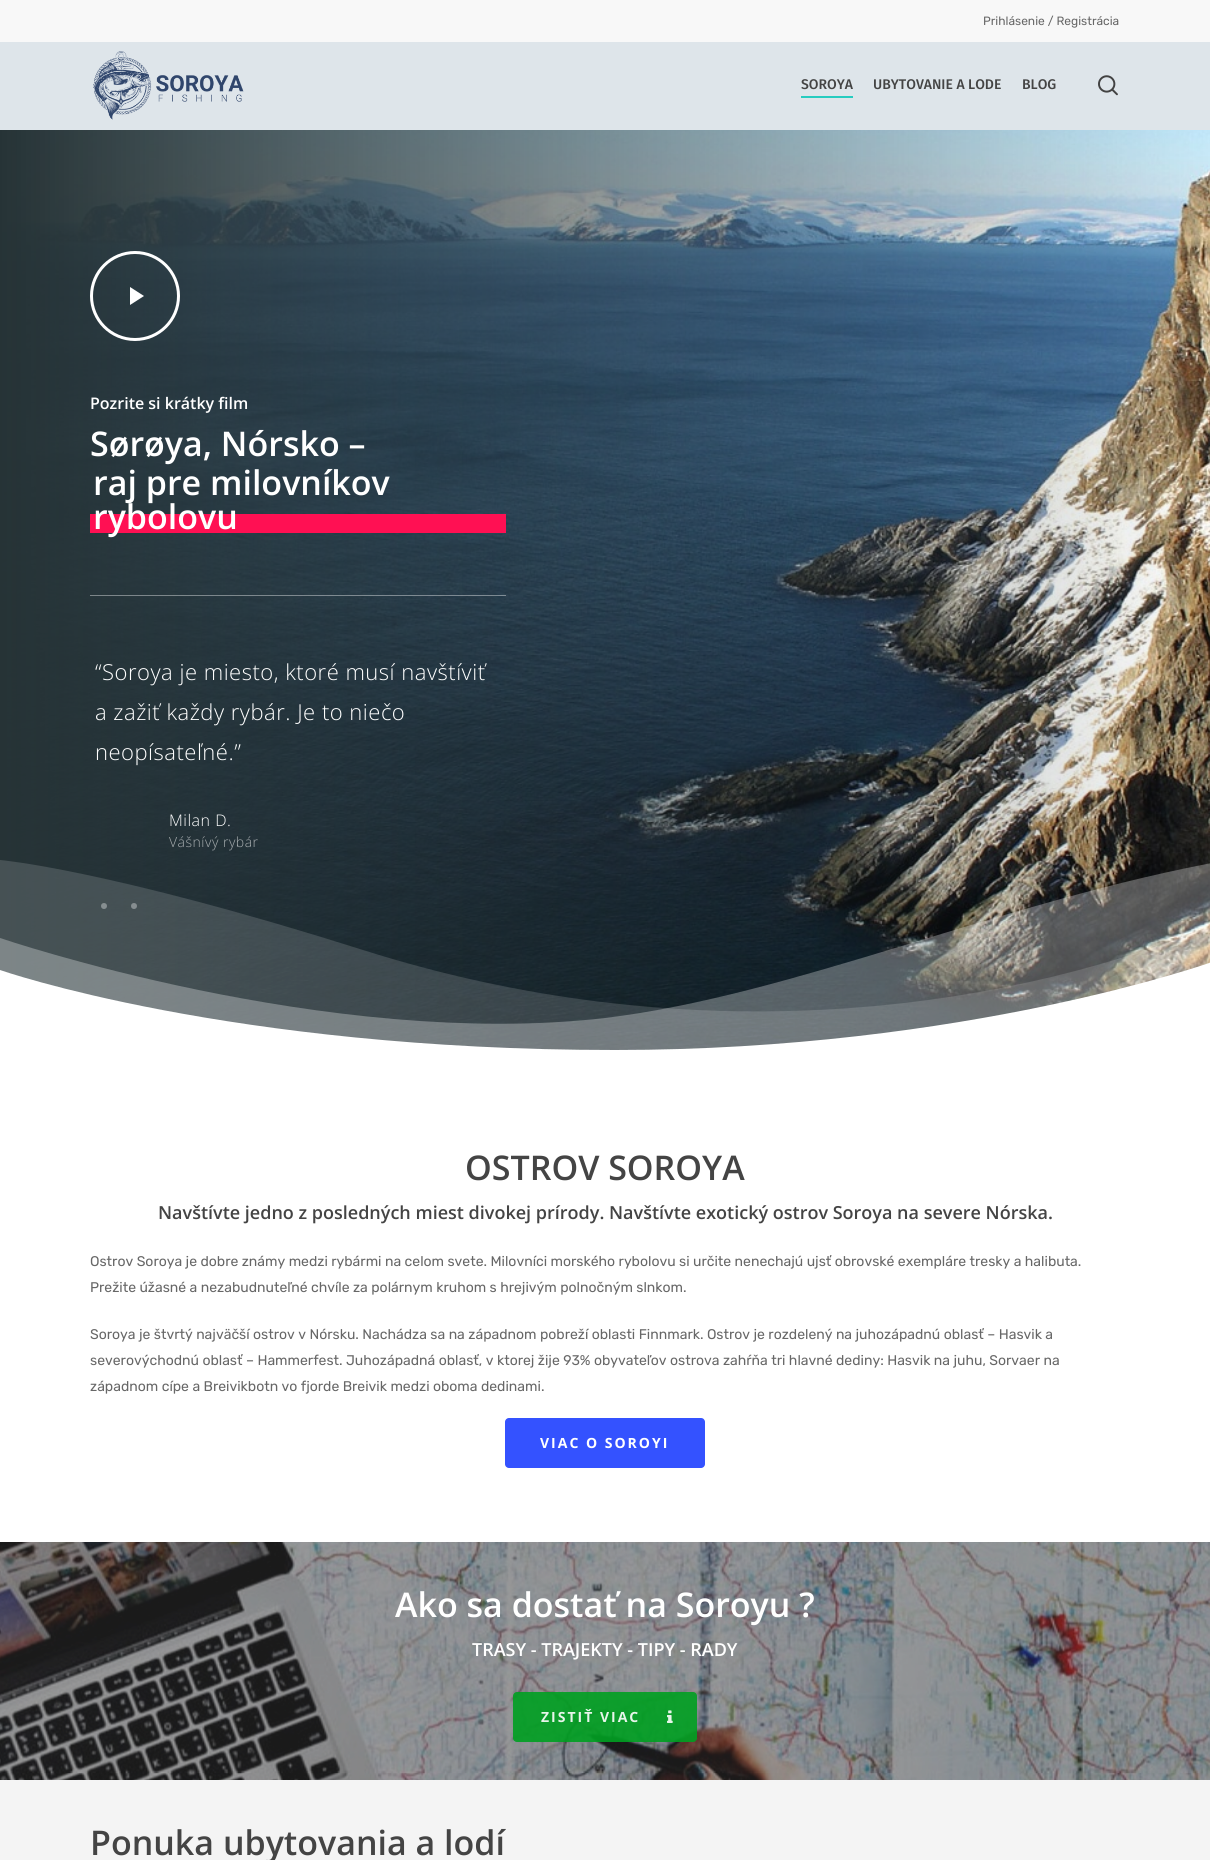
#include <cairo.h>
#include <math.h>
#include <stddef.h>

static cairo_t *c;
static void C(unsigned color){cairo_set_source_rgb(c, (color >> 16) / 255.0, (color >> 8 & 255) / 255.0, (color & 255) / 255.0);}
static void F(const char *family, double size, int italic, int bold){cairo_select_font_face(c, family, italic ? CAIRO_FONT_SLANT_ITALIC : CAIRO_FONT_SLANT_NORMAL,bold ? CAIRO_FONT_WEIGHT_BOLD : CAIRO_FONT_WEIGHT_NORMAL);cairo_set_font_size(c, size);}
static void T(double x, double y, const char *s){cairo_move_to(c, x, y);cairo_show_text(c, s);}
static void L(double x, double y, const char *s, double letter, double word){cairo_move_to(c, x, y);while (*s) {char ch[5] = {0};int n = 0;do ch[n++] = *s++; while ((*s & 0xC0) == 0x80);cairo_show_text(c, ch);cairo_rel_move_to(c, letter + word * (*ch == ' '), 0);}}
static void R(double x, double y, double w, double h){cairo_rectangle(c, x, y, w, h);cairo_fill(c);}
static void Q(double x, double y, double w, double h, double r){cairo_new_sub_path(c);cairo_arc(c, x + w - r, y + h - r, r, 0, M_PI / 2);cairo_arc(c, x + r, y + h - r, r, M_PI / 2, M_PI);cairo_arc(c, x + r, y + r, r, M_PI, 1.5 * M_PI);cairo_arc(c, x + w - r, y + r, r, 1.5 * M_PI, 2 * M_PI);cairo_close_path(c);}
static void I(const char *path, double x, double y, double w, double h){cairo_surface_t *image = cairo_image_surface_create_from_png(path);cairo_save(c);cairo_set_source_surface(c, image, x, y);cairo_rectangle(c, x, y, w, h);cairo_fill(c);cairo_restore(c);cairo_surface_destroy(image);}
int main(void) {
cairo_surface_t *surface = cairo_image_surface_create(CAIRO_FORMAT_RGB24, 1210, 1860);
c = cairo_create(surface);
cairo_font_options_t *options = cairo_font_options_create();
cairo_font_options_set_hint_metrics(options, CAIRO_HINT_METRICS_OFF);
cairo_font_options_set_hint_style(options, CAIRO_HINT_STYLE_NONE);
cairo_set_font_options(c, options);
cairo_set_miter_limit(c, 4);
C(0xffffff);
cairo_paint(c);
C(0xf8f8f8);
R(0,0,1210,42);
F("Rubik Light",12,0,0);
C(0x676767);
T(983,25,"Prihlásenie / Registrácia");
C(0xdee5ea);
R(0,42,1210,88);
I("1.png",93,51,151,69);
F("Fira Sans Medium",14,0,0);
C(0x444444);
T(801,89,"SOROYA");
C(0x27ccc0);
R(801,96,52,2);
C(0x444444);
T(873,89,"UBYTOVANIE A LODE");
T(1022,89,"BLOG");
I("2.png",1098,75,20,21);
I("3.png",0,130,1210,920);
C(0xffffff);
cairo_new_path(c);
cairo_move_to(c,130,287);
cairo_line_to(c,130,305);
cairo_line_to(c,144,296);
cairo_close_path(c);
cairo_fill(c);
cairo_arc(c,135,296,43.5,0,2 * M_PI);
cairo_set_line_width(c,3);
cairo_stroke(c);
F("Open Sans SemiBold",16,0,0);
T(90,409,"Pozrite si krátky film");
F("Open Sans SemiBold",34,0,0);
T(90,456,"Sørøya, Nórsko –");
T(93,495,"raj pre milovníkov");
C(0xff1053);
R(90,514,416,19);
C(0xffffff);
T(93,529,"rybolovu");
cairo_set_source_rgba(c,1,1,1,0.4);
R(90,595,416,1);
F("Open Sans Light",22,0,0);
C(0xffffff);
L(95,680,"“Soroya je miesto, ktoré musí navštíviť",.5,0);
L(95,720,"a zažiť každy rybár. Je to niečo",.5,0);
L(95,760,"neopísateľné.”",.5,0);
F("Open Sans Light",16,0,0);
L(169,826,"Milan D.",.5,0);
F("Open Sans Light",14,0,0);
C(0xa7adaf);
L(169,847,"Vášnívý rybár",.5,0);
cairo_save(c);
cairo_rectangle(c,0,825,1210,250);
cairo_clip(c);
cairo_set_source_rgba(c,1,1,1,0.15);
cairo_new_path(c);
cairo_move_to(c,0,860);
cairo_curve_to(c,0,860,107,869,363,950);
cairo_curve_to(c,678,1050,985,1018,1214,925);
cairo_line_to(c,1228,995);
cairo_line_to(c,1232,1085);
cairo_line_to(c,0,1085);
cairo_close_path(c);
cairo_fill(c);
cairo_restore(c);
cairo_set_source_rgba(c,1,1,1,0.3);
cairo_new_path(c);
cairo_move_to(c,0,938);
cairo_curve_to(c,0,938,328,1050,605,1018);
cairo_curve_to(c,795,995,1004,900,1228,860);
cairo_line_to(c,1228,1075);
cairo_line_to(c,0,1075);
cairo_close_path(c);
cairo_fill(c);
C(0x868e90);
cairo_arc(c,104,906,3,0,2 * M_PI);
cairo_fill(c);
C(0x868d90);
cairo_arc(c,134,906,3,0,2 * M_PI);
cairo_fill(c);
C(0xffffff);
cairo_new_path(c);
cairo_move_to(c,0,970);
cairo_curve_to(c,0,970,228,1050,615,1050);
cairo_curve_to(c,966,1050,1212,962,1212,962);
cairo_line_to(c,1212,1075);
cairo_line_to(c,0,1075);
cairo_close_path(c);
cairo_fill(c);
F("Open Sans SemiBold",34,0,0);
C(0x444444);
T(465,1180,"OSTROV SOROYA");
F("Open Sans SemiBold",18,0,0);
T(158,1219,"Navštívte jedno z posledných miest divokej prírody. Navštívte exotický ostrov Soroya na severe Nórska.");
F("Rubik Light",14,0,0);
C(0x676767);
T(90,1266,"Ostrov Soroya je dobre známy medzi rybármi na celom svete. Milovníci morského rybolovu si určite nenechajú ujsť obrovské exempláre tresky a halibuta.");
T(90,1292,"Prežite úžasné a nezabudnuteľné chvíle za polárnym kruhom s hrejivým polnočným slnkom.");
T(90,1339,"Soroya je štvrtý najväčší ostrov v Nórsku. Nachádza sa na západnom pobreží oblasti Finnmark. Ostrov je rozdelený na juhozápadnú oblasť – Hasvik a");
T(90,1365,"severovýchodnú oblasť – Hammerfest. Juhozápadná oblasť, v ktorej žije 93% obyvateľov ostrova zahŕňa tri hlavné dediny: Hasvik na juhu, Sorvaer na");
T(90,1391,"západnom cípe a Breivikbotn vo fjorde Breivik medzi oboma dedinami.");
C(0x3452ff);
Q(505,1418,200,50,4);
cairo_fill(c);
F("Open Sans",14,0,1);
C(0xffffff);
L(540,1448,"VIAC O SOROYI",2,0);
I("4.png",0,1542,1210,238);
F("Open Sans SemiBold",34,0,0);
T(395,1617,"Ako sa dostať na Soroyu ?");
F("Open Sans SemiBold",18,0,0);
T(472,1656,"TRASY - TRAJEKTY - TIPY - RADY");
cairo_set_source_rgba(c,0,0.627,0.133,0.9);
Q(513,1692,184,50,4);
cairo_fill(c);
F("Open Sans",14,0,1);
C(0xe7f5ea);
L(541,1722,"ZISTIŤ VIAC",2,0);
I("5.png",667,1710,6,13);
C(0xf4f4f4);
R(0,1780,1210,80);
F("Open Sans SemiBold",34,0,0);
C(0x444444);
T(90,1855,"Ponuka ubytovania a lodí");
cairo_surface_write_to_png(surface, "o.png");
cairo_font_options_destroy(options);
cairo_destroy(c);
cairo_surface_destroy(surface);
return 0;
}
